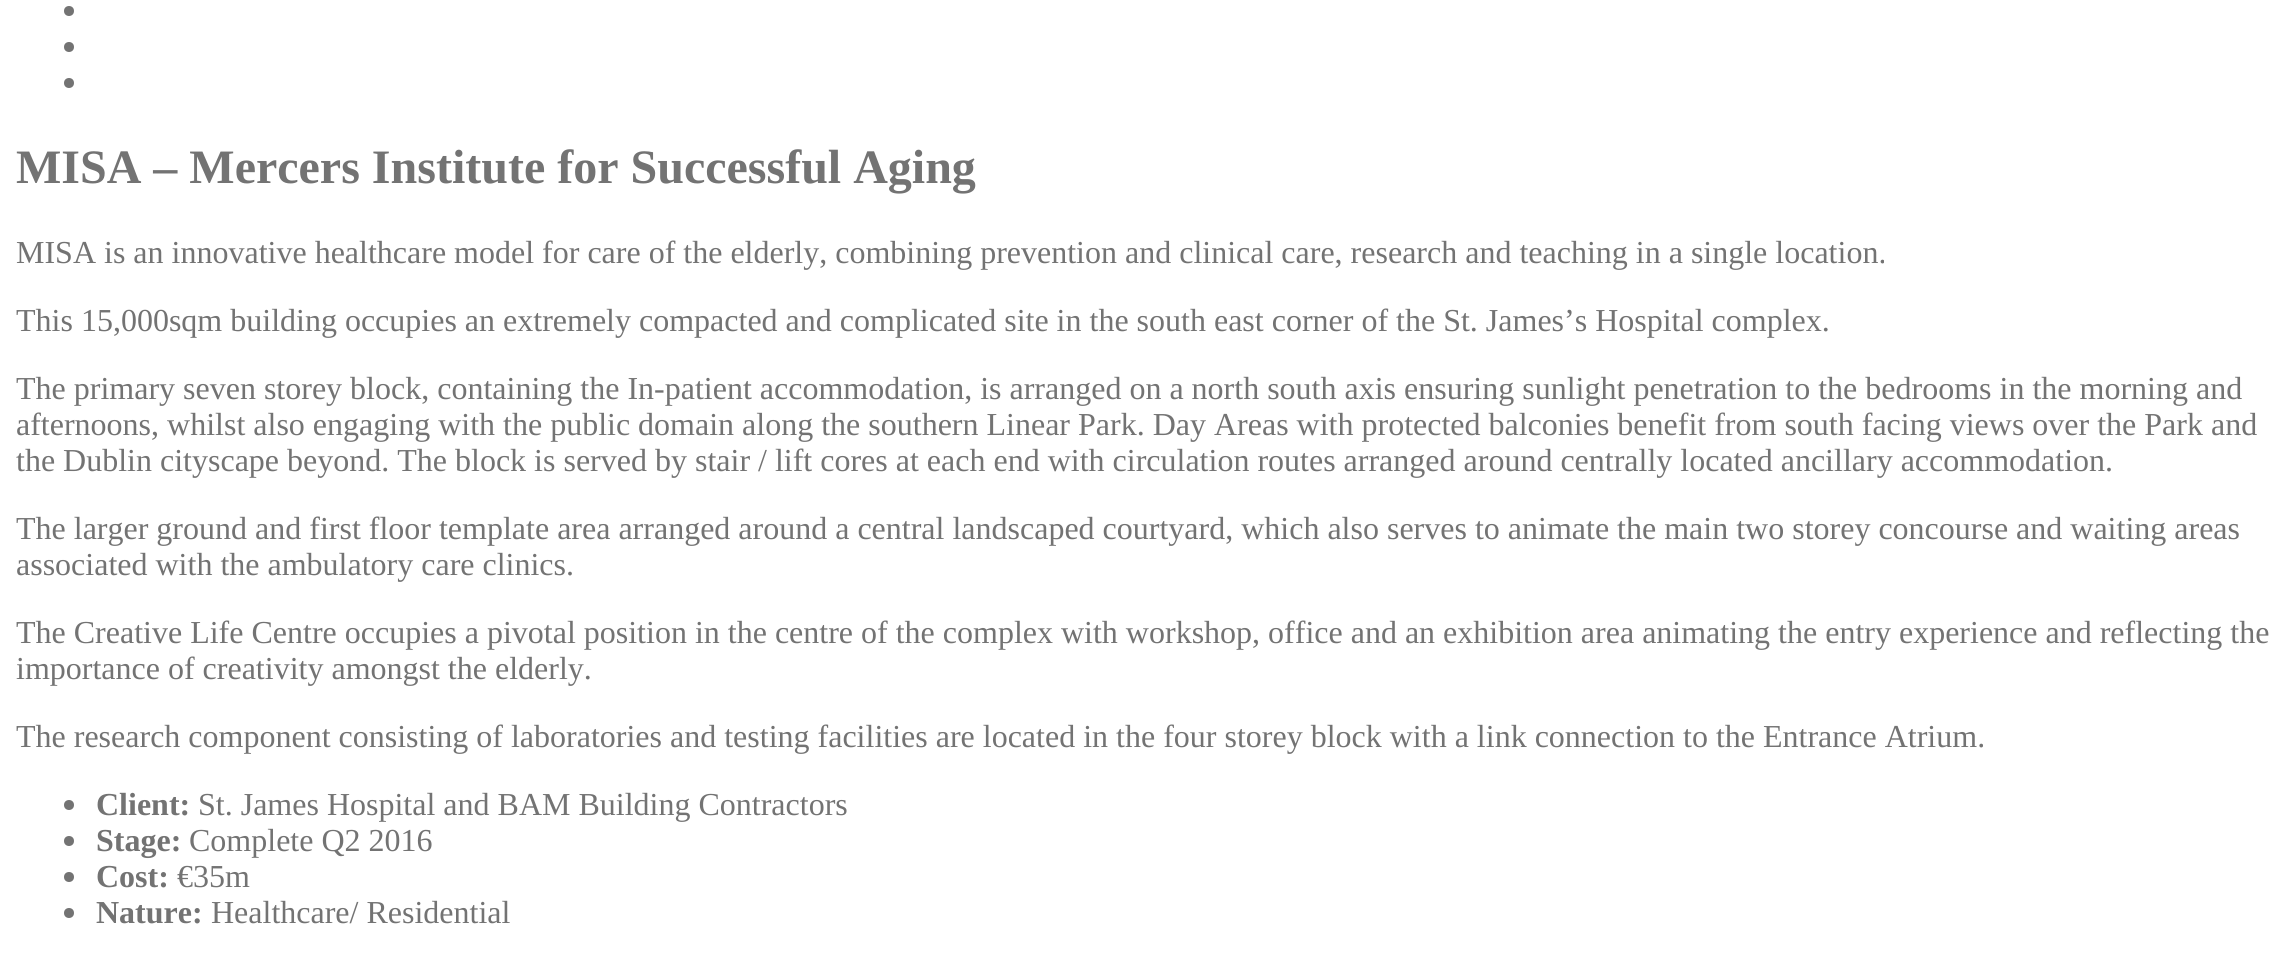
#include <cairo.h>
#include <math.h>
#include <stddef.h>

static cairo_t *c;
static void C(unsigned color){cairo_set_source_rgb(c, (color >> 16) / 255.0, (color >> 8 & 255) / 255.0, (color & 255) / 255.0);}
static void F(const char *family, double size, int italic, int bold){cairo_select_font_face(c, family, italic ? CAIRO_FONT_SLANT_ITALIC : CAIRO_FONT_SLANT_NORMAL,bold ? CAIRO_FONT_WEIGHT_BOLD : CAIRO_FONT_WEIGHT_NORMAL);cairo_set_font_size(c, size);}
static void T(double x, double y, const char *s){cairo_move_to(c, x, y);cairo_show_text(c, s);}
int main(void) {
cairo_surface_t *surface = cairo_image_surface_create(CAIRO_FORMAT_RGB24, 2287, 953);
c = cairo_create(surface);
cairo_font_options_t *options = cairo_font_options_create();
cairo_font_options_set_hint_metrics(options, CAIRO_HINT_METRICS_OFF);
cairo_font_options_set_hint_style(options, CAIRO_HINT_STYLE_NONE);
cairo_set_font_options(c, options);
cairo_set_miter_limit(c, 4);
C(0xffffff);
cairo_paint(c);
C(0x737373);
cairo_arc(c,69,11,5,0,2 * M_PI);
cairo_fill(c);
cairo_arc(c,69,47,5,0,2 * M_PI);
cairo_fill(c);
cairo_arc(c,69,83,5,0,2 * M_PI);
cairo_fill(c);
F("Liberation Serif",48,0,1);
T(16,183,"MISA – Mercers Institute for Successful Aging");
F("Liberation Serif",32,0,0);
T(16,263,"MISA is an innovative healthcare model for care of the elderly, combining prevention and clinical care, research and teaching in a single location.");
T(16,331,"This 15,000sqm building occupies an extremely compacted and complicated site in the south east corner of the St. James’s Hospital complex.");
T(16,399,"The primary seven storey block, containing the In-patient accommodation, is arranged on a north south axis ensuring sunlight penetration to the bedrooms in the morning and");
T(16,435,"afternoons, whilst also engaging with the public domain along the southern Linear Park. Day Areas with protected balconies benefit from south facing views over the Park and");
T(16,471,"the Dublin cityscape beyond. The block is served by stair / lift cores at each end with circulation routes arranged around centrally located ancillary accommodation.");
T(16,539,"The larger ground and first floor template area arranged around a central landscaped courtyard, which also serves to animate the main two storey concourse and waiting areas");
T(16,575,"associated with the ambulatory care clinics.");
T(16,643,"The Creative Life Centre occupies a pivotal position in the centre of the complex with workshop, office and an exhibition area animating the entry experience and reflecting the");
T(16,679,"importance of creativity amongst the elderly.");
T(16,747,"The research component consisting of laboratories and testing facilities are located in the four storey block with a link connection to the Entrance Atrium.");
cairo_new_path(c);
cairo_arc(c,69,805,5,0,2 * M_PI);
cairo_fill(c);
F("Liberation Serif",32,0,1);
T(96,815,"Client:");
F("Liberation Serif",32,0,0);
T(198,815,"St. James Hospital and BAM Building Contractors");
cairo_new_path(c);
cairo_arc(c,69,841,5,0,2 * M_PI);
cairo_fill(c);
F("Liberation Serif",32,0,1);
T(96,851,"Stage:");
F("Liberation Serif",32,0,0);
T(189,851,"Complete Q2 2016");
cairo_new_path(c);
cairo_arc(c,69,877,5,0,2 * M_PI);
cairo_fill(c);
F("Liberation Serif",32,0,1);
T(96,887,"Cost:");
F("Liberation Serif",32,0,0);
T(177,887,"€35m");
cairo_new_path(c);
cairo_arc(c,69,913,5,0,2 * M_PI);
cairo_fill(c);
F("Liberation Serif",32,0,1);
T(96,923,"Nature:");
F("Liberation Serif",32,0,0);
T(211,923,"Healthcare/ Residential");
cairo_surface_write_to_png(surface, "o.png");
cairo_font_options_destroy(options);
cairo_destroy(c);
cairo_surface_destroy(surface);
return 0;
}
